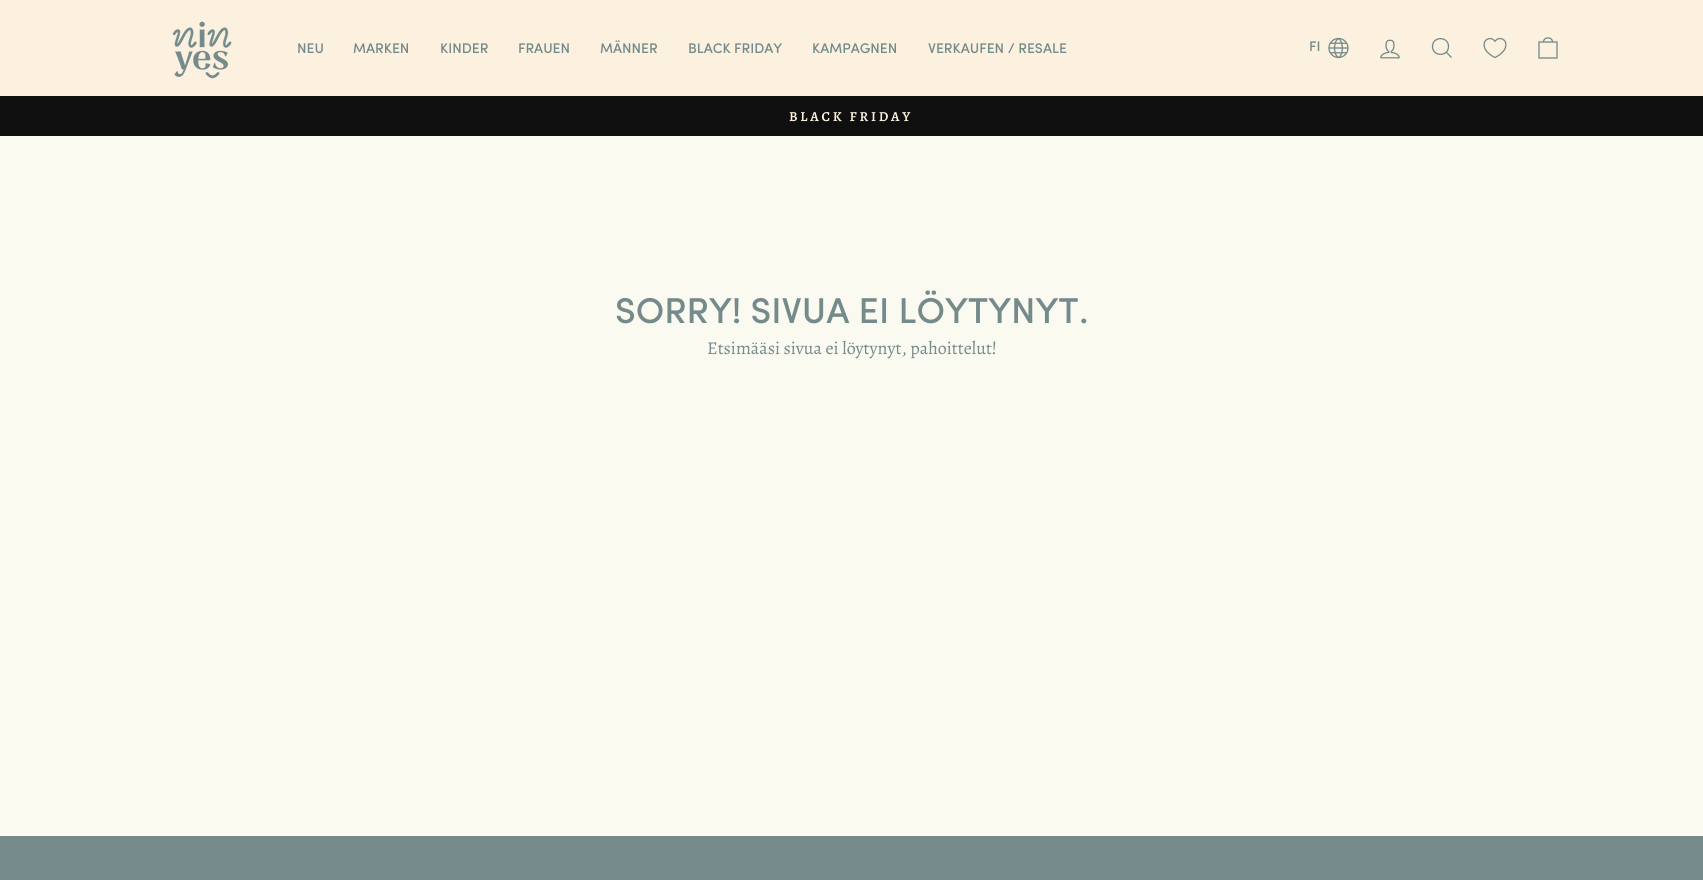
#include <cairo.h>
#include <math.h>
#include <stddef.h>

static cairo_t *c;
static void C(unsigned color){cairo_set_source_rgb(c, (color >> 16) / 255.0, (color >> 8 & 255) / 255.0, (color & 255) / 255.0);}
static void F(const char *family, double size, int italic, int bold){cairo_select_font_face(c, family, italic ? CAIRO_FONT_SLANT_ITALIC : CAIRO_FONT_SLANT_NORMAL,bold ? CAIRO_FONT_WEIGHT_BOLD : CAIRO_FONT_WEIGHT_NORMAL);cairo_set_font_size(c, size);}
static void T(double x, double y, const char *s){cairo_move_to(c, x, y);cairo_show_text(c, s);}
static void L(double x, double y, const char *s, double letter, double word){cairo_move_to(c, x, y);while (*s) {char ch[5] = {0};int n = 0;do ch[n++] = *s++; while ((*s & 0xC0) == 0x80);cairo_show_text(c, ch);cairo_rel_move_to(c, letter + word * (*ch == ' '), 0);}}
static void R(double x, double y, double w, double h){cairo_rectangle(c, x, y, w, h);cairo_fill(c);}
static void I(const char *path, double x, double y, double w, double h){cairo_surface_t *image = cairo_image_surface_create_from_png(path);cairo_save(c);cairo_set_source_surface(c, image, x, y);cairo_rectangle(c, x, y, w, h);cairo_fill(c);cairo_restore(c);cairo_surface_destroy(image);}
int main(void) {
cairo_surface_t *surface = cairo_image_surface_create(CAIRO_FORMAT_RGB24, 1703, 880);
c = cairo_create(surface);
cairo_font_options_t *options = cairo_font_options_create();
cairo_font_options_set_hint_metrics(options, CAIRO_HINT_METRICS_OFF);
cairo_font_options_set_hint_style(options, CAIRO_HINT_STYLE_NONE);
cairo_set_font_options(c, options);
cairo_set_miter_limit(c, 4);
C(0xfbfaf0);
cairo_paint(c);
C(0xfcf1de);
R(0,0,1703,96);
I("1.png",172,21,60,58);
F("Sofia Medium",14,0,0);
C(0x748a8b);
T(297,53,"NEU");
T(353,53,"MARKEN");
T(440,53,"KINDER");
T(518,53,"FRAUEN");
T(600,53,"MÄNNER");
T(688,53,"BLACK FRIDAY");
T(812,53,"KAMPAGNEN");
T(928,53,"VERKAUFEN / RESALE");
T(1309,51,"FI");
I("2.png",1328,37,21,22);
I("3.png",1380,39,20,20);
cairo_new_path(c);
cairo_move_to(c,1448.5,46.5);
cairo_curve_to(c,1448.5,57,1432.5,57,1432.5,46.5);
cairo_curve_to(c,1432.5,36,1448.5,36,1448.5,46.5);
cairo_close_path(c);
cairo_move_to(c,1451.5,57.5);
cairo_line_to(c,1446.5,52.5);
cairo_set_line_width(c,1.3);
cairo_stroke(c);
I("4.png",1483,37,24,22);
cairo_new_path(c);
cairo_move_to(c,1539,42);
cairo_line_to(c,1557,42);
cairo_line_to(c,1557,58);
cairo_line_to(c,1539,58);
cairo_close_path(c);
cairo_move_to(c,1543.5,42);
cairo_curve_to(c,1543.5,36.5,1552.5,36.5,1552.5,42);
cairo_stroke(c);
C(0x0f0f0f);
R(0,96,1703,40);
F("Alegreya SemiBold",13.75,0,0);
C(0xfcf1de);
L(789,121,"BLACK FRIDAY",2.75,0);
F("Sofia Medium",36,0,0);
C(0x748a8b);
T(615,323,"SORRY! SIVUA EI LÖYTYNYT.");
F("Alegreya",18,0,0);
T(707,354,"Etsimääsi sivua ei löytynyt, pahoittelut!");
R(0,836,1703,44);
cairo_surface_write_to_png(surface, "o.png");
cairo_font_options_destroy(options);
cairo_destroy(c);
cairo_surface_destroy(surface);
return 0;
}
